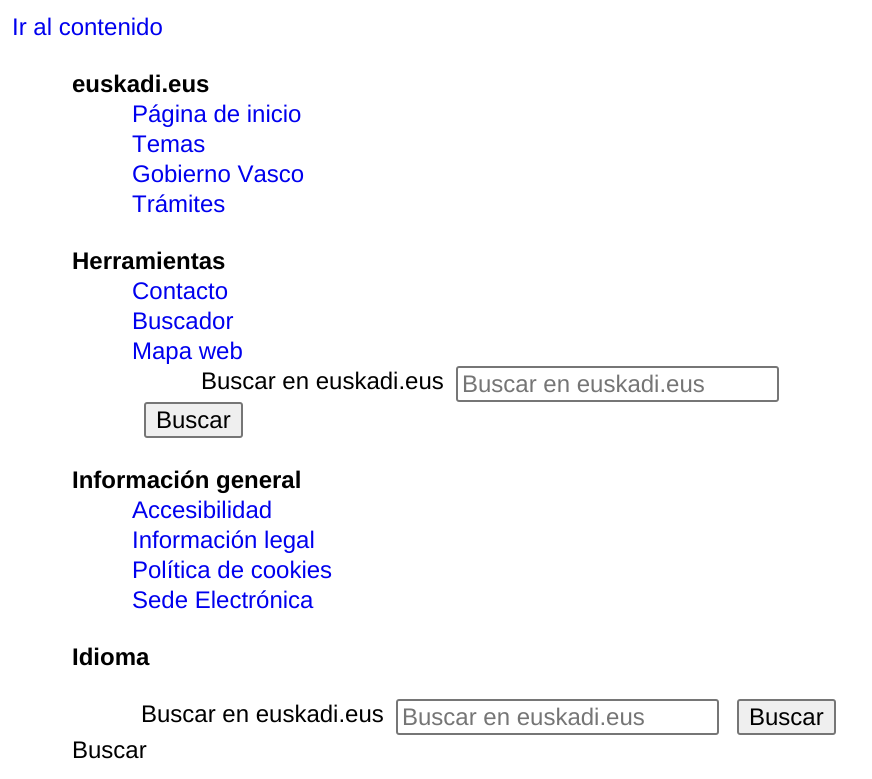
#include <cairo.h>
#include <math.h>
#include <stddef.h>

static cairo_t *c;
static void C(unsigned color){cairo_set_source_rgb(c, (color >> 16) / 255.0, (color >> 8 & 255) / 255.0, (color & 255) / 255.0);}
static void F(const char *family, double size, int italic, int bold){cairo_select_font_face(c, family, italic ? CAIRO_FONT_SLANT_ITALIC : CAIRO_FONT_SLANT_NORMAL,bold ? CAIRO_FONT_WEIGHT_BOLD : CAIRO_FONT_WEIGHT_NORMAL);cairo_set_font_size(c, size);}
static void T(double x, double y, const char *s){cairo_move_to(c, x, y);cairo_show_text(c, s);}
static void Q(double x, double y, double w, double h, double r){cairo_new_sub_path(c);cairo_arc(c, x + w - r, y + h - r, r, 0, M_PI / 2);cairo_arc(c, x + r, y + h - r, r, M_PI / 2, M_PI);cairo_arc(c, x + r, y + r, r, M_PI, 1.5 * M_PI);cairo_arc(c, x + w - r, y + r, r, 1.5 * M_PI, 2 * M_PI);cairo_close_path(c);}
int main(void) {
cairo_surface_t *surface = cairo_image_surface_create(CAIRO_FORMAT_RGB24, 872, 779);
c = cairo_create(surface);
cairo_font_options_t *options = cairo_font_options_create();
cairo_font_options_set_hint_metrics(options, CAIRO_HINT_METRICS_OFF);
cairo_font_options_set_hint_style(options, CAIRO_HINT_STYLE_NONE);
cairo_set_font_options(c, options);
cairo_set_miter_limit(c, 4);
C(0xffffff);
cairo_paint(c);
F("Liberation Sans",24,0,0);
C(0x0000ee);
T(12,35,"Ir al contenido");
F("Liberation Sans",24,0,1);
C(0x000000);
T(72,92,"euskadi.eus");
F("Liberation Sans",24,0,0);
C(0x0000ee);
T(132,122,"Página de inicio");
T(132,152,"Temas");
T(132,182,"Gobierno Vasco");
T(132,212,"Trámites");
F("Liberation Sans",24,0,1);
C(0x000000);
T(72,269,"Herramientas");
F("Liberation Sans",24,0,0);
C(0x0000ee);
T(132,299,"Contacto");
T(132,329,"Buscador");
T(132,359,"Mapa web");
C(0x000000);
T(201,389,"Buscar en euskadi.eus");
Q(457,367,321,34,2);
C(0x767676);
cairo_stroke(c);
C(0x757575);
T(462,392,"Buscar en euskadi.eus");
C(0xefefef);
Q(145,403,97,34,2);
cairo_fill_preserve(c);
C(0x767676);
cairo_stroke(c);
C(0x000000);
T(156,428,"Buscar");
F("Liberation Sans",24,0,1);
T(72,488,"Información general");
F("Liberation Sans",24,0,0);
C(0x0000ee);
T(132,518,"Accesibilidad");
T(132,548,"Información legal");
T(132,578,"Política de cookies");
T(132,608,"Sede Electrónica");
F("Liberation Sans",24,0,1);
C(0x000000);
T(72,665,"Idioma");
F("Liberation Sans",24,0,0);
T(141,722,"Buscar en euskadi.eus");
Q(397,700,321,34,2);
C(0x767676);
cairo_stroke(c);
C(0x757575);
T(402,725,"Buscar en euskadi.eus");
C(0xefefef);
Q(738,700,97,34,2);
cairo_fill_preserve(c);
C(0x767676);
cairo_stroke(c);
C(0x000000);
T(749,725,"Buscar");
T(72,758,"Buscar");
cairo_surface_write_to_png(surface, "o.png");
cairo_font_options_destroy(options);
cairo_destroy(c);
cairo_surface_destroy(surface);
return 0;
}
